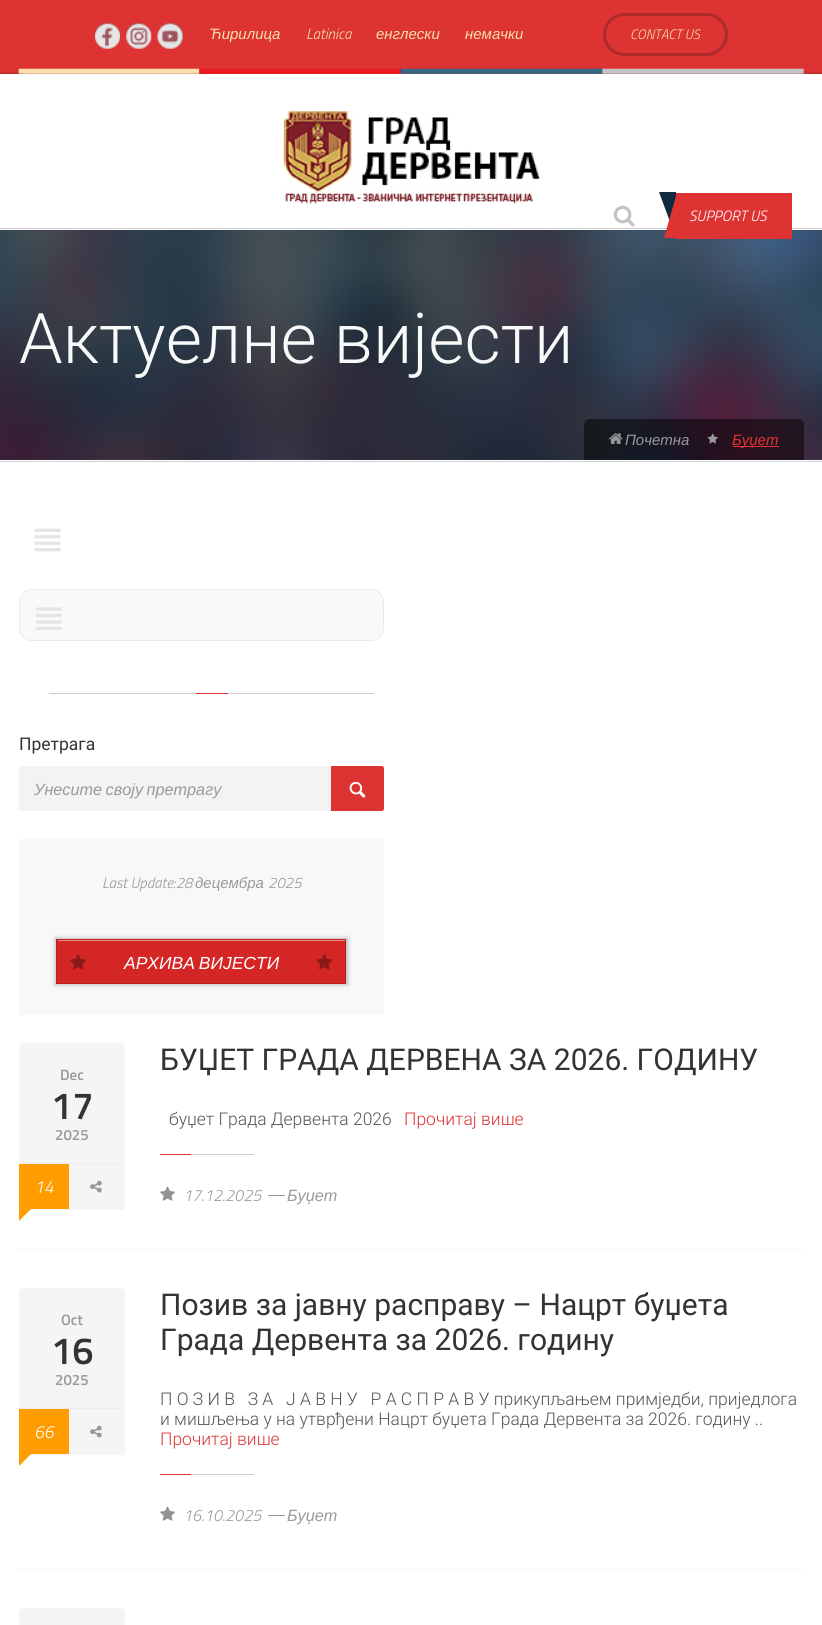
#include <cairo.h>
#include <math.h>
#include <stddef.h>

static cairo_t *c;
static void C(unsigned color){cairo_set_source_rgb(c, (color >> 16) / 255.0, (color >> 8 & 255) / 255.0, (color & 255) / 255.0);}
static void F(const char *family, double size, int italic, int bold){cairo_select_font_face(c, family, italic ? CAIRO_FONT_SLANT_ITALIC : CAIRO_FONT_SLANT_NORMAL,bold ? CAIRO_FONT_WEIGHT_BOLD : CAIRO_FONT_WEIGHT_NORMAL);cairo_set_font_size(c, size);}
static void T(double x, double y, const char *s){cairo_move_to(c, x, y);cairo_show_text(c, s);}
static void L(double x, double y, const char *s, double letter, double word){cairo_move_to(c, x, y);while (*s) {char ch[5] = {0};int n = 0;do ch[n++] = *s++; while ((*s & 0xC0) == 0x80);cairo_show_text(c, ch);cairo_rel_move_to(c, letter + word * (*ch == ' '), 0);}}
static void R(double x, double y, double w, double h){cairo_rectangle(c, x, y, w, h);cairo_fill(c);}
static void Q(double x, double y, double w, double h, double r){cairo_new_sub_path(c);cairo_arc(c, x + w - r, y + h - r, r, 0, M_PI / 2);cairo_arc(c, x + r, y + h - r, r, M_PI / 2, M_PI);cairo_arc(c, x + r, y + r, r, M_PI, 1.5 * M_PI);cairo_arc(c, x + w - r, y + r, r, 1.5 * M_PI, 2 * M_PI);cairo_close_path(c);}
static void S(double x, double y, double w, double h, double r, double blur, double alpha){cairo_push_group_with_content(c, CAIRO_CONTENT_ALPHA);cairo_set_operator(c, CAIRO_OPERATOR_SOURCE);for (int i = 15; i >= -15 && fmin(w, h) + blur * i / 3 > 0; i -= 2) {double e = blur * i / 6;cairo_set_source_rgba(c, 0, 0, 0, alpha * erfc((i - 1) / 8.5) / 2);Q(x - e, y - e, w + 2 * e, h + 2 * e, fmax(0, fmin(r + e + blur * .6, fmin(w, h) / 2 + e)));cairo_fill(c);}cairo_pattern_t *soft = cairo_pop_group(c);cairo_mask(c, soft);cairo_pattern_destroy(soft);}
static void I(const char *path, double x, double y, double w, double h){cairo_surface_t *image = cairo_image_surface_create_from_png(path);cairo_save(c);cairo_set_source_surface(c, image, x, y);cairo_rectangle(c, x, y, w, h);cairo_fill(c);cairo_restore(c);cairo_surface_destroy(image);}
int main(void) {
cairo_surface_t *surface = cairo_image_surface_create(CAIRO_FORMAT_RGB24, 822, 1625);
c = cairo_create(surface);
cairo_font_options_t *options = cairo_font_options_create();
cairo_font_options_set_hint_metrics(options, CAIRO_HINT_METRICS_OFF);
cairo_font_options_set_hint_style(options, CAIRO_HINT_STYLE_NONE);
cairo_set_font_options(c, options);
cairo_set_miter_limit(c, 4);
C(0xffffff);
cairo_paint(c);
C(0xdd3333);
R(0,0,822,74);
C(0x9e545d);
cairo_arc(c,107.5,35.5,12.5,0,2 * M_PI);
cairo_fill(c);
I("1.png",95,23,25,26);
cairo_arc(c,138.5,35.5,12.5,0,2 * M_PI);
cairo_fill(c);
I("2.png",126,23,26,26);
cairo_arc(c,170.5,35.5,12.5,0,2 * M_PI);
cairo_fill(c);
I("3.png",157,23,26,26);
F("Liberation Sans",15,1,0);
C(0xf5e0ae);
T(209,39,"Ћирилица");
F("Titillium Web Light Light",15,1,0);
T(306,39,"Latinica");
F("Liberation Sans",15,1,0);
T(376,39,"енглески");
T(465,39,"немачки");
Q(604.5,14.5,122,40,20);
C(0xad2b2b);
cairo_set_line_width(c,3);
cairo_stroke(c);
F("Titillium Web Light Light",13.75,1,0);
C(0xf5e0ae);
T(630,39,"CONTACT US");
C(0x000000);
S(0,74,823,155,0,2,.3);
I("4.png",18,68,786,6);
C(0xffffff);
R(0,74,822,155);
I("5.png",279,111,262,93);
I("6.png",613,205,22,22);
I("7.png",0,228,822,234);
R(0,229,822,1);
C(0xdd3333);
R(676,193,116,46);
C(0x102b40);
cairo_new_path(c);
cairo_move_to(c,676,192);
cairo_line_to(c,676,238);
cairo_line_to(c,659,192);
cairo_close_path(c);
cairo_fill(c);
C(0xdd3333);
cairo_new_path(c);
cairo_move_to(c,676,196);
cairo_line_to(c,676,238);
cairo_line_to(c,664,238);
cairo_close_path(c);
cairo_fill(c);
F("Titillium Web Light Light",15,1,0);
C(0xffffff);
T(689,221,"SUPPORT US");
R(0,460,822,1);
F("Roboto Light",70,0,0);
C(0xf8f9f9);
T(19,363,"Актуелне вијести");
cairo_set_source_rgba(c,0,0,0,0.5);
cairo_new_path(c);
cairo_move_to(c,590,419);
cairo_line_to(c,798,419);
cairo_curve_to(c,801.5,419,804,421.5,804,425);
cairo_line_to(c,804,460);
cairo_line_to(c,584,460);
cairo_line_to(c,584,425);
cairo_curve_to(c,584,421.5,586.5,419,590,419);
cairo_close_path(c);
cairo_fill(c);
I("8.png",609,433,14,11);
F("Liberation Sans",15,1,0);
C(0x999999);
T(625,445,"Почетна");
I("9.png",707,433,11,11);
C(0xdd3333);
R(733,446,46,1);
T(732,445,"Буџет");
I("10.png",34,528,27,24);
C(0xf9f9f9);
Q(19.5,589.5,364,51,12.5);
cairo_fill_preserve(c);
C(0xeaeaea);
cairo_set_line_width(c,1);
cairo_stroke(c);
I("11.png",35,607,27,23);
C(0xcccccc);
R(49,693,325,1);
C(0xdd3333);
R(196,693,32,1);
F("Roboto",17.5,0,0);
C(0x333333);
T(19,750,"Претрага");
C(0xf3f3f3);
R(19,766,365,45);
F("Liberation Sans",16.25,1,0);
C(0x999999);
L(34,795,"Унесите своју претрагу",0,-1);
C(0xdd3333);
cairo_new_path(c);
cairo_move_to(c,331,766);
cairo_line_to(c,381.5,766);
cairo_curve_to(c,383,766,384,767,384,768.5);
cairo_line_to(c,384,808.5);
cairo_curve_to(c,384,810,383,811,381.5,811);
cairo_line_to(c,331,811);
cairo_close_path(c);
cairo_fill(c);
I("12.png",349,781,17,17);
C(0xf8f8f8);
R(19,839,365,176);
F("Titillium Web Light Light",15,1,0);
C(0x999999);
T(102,888,"Last Update:28");
F("Liberation Sans",15,1,0);
T(195,888,"децембра");
F("Titillium Web Light Light",15,1,0);
T(268,888,"2025");
C(0xbbbbbb);
S(55,938,293,47,0,2,1);
C(0xd42725);
R(57,940,288,43);
C(0xea9392);
R(58,940,287,1);
cairo_rectangle(c,56.5,939.5,289,44);
C(0xb81f1d);
cairo_stroke(c);
I("13.png",70,954,17,16);
F("Liberation Sans",17.5,1,0);
C(0xffffff);
L(124,969,"АРХИВА ВИЈЕСТИ",0,-1);
I("14.png",316,954,17,16);
C(0xf5f5f5);
R(19,1249,785,1);
cairo_new_path(c);
cairo_move_to(c,24,1043);
cairo_line_to(c,120,1043);
cairo_curve_to(c,123,1043,125,1045,125,1048);
cairo_line_to(c,125,1164);
cairo_line_to(c,19,1164);
cairo_line_to(c,19,1048);
cairo_curve_to(c,19,1045,21,1043,24,1043);
cairo_close_path(c);
cairo_fill(c);
C(0xededed);
R(19,1163,106,1);
F("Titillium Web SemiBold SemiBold",15,0,0);
C(0x999999);
T(60,1080,"Dec");
F("Titillium Web SemiBold SemiBold",38,0,0);
C(0x333333);
T(51,1119,"17");
F("Titillium Web SemiBold SemiBold",15,0,0);
C(0x999999);
T(55,1140,"2025");
C(0xf5f5f5);
R(30,1164,95,46);
C(0xff9c00);
R(19,1164,50,45);
F("Titillium Web Light Light",17.5,1,0);
C(0xffffff);
T(34,1193,"14");
C(0xff9c00);
cairo_new_path(c);
cairo_move_to(c,19,1209);
cairo_line_to(c,31,1209);
cairo_line_to(c,19,1221);
cairo_close_path(c);
cairo_fill(c);
I("15.png",90,1180,12,13);
F("Roboto",30,0,0);
C(0x333333);
T(160,1070,"БУЏЕТ ГРАДА ДЕРВЕНА ЗА 2026. ГОДИНУ");
F("Roboto Light",17.5,0,0);
C(0x555555);
T(169,1125,"буџет Града Дервента 2026");
C(0xdd3333);
T(404,1125,"Прочитај више");
R(160,1154,31,1);
C(0xcccccc);
R(191,1154,63,1);
I("16.png",160,1186,15,15);
F("Titillium Web Light Light",16.25,1,0);
C(0x999999);
T(183,1201,"17.12.2025");
R(268,1195,17,1);
F("Liberation Sans",16.25,1,0);
T(287,1201,"Буџет");
C(0xf5f5f5);
R(19,1569,785,1);
cairo_new_path(c);
cairo_move_to(c,24,1288);
cairo_line_to(c,120,1288);
cairo_curve_to(c,123,1288,125,1290,125,1293);
cairo_line_to(c,125,1409);
cairo_line_to(c,19,1409);
cairo_line_to(c,19,1293);
cairo_curve_to(c,19,1290,21,1288,24,1288);
cairo_close_path(c);
cairo_fill(c);
C(0xededed);
R(19,1408,106,1);
F("Titillium Web SemiBold SemiBold",15,0,0);
C(0x999999);
T(61,1325,"Oct");
F("Titillium Web SemiBold SemiBold",38,0,0);
C(0x333333);
T(51,1364,"16");
F("Titillium Web SemiBold SemiBold",15,0,0);
C(0x999999);
T(55,1385,"2025");
C(0xf5f5f5);
R(30,1409,95,46);
C(0xff9c00);
R(19,1409,50,45);
F("Titillium Web Light Light",17.5,1,0);
C(0xffffff);
T(34,1438,"66");
C(0xff9c00);
cairo_new_path(c);
cairo_move_to(c,19,1454);
cairo_line_to(c,31,1454);
cairo_line_to(c,19,1466);
cairo_close_path(c);
cairo_fill(c);
I("15.png",90,1425,12,13);
F("Roboto",30,0,0);
C(0x333333);
T(160,1315,"Позив за јавну расправу – Нацрт буџета");
T(160,1350,"Града Дервента за 2026. годину");
F("Roboto Light",17.5,0,0);
C(0x555555);
T(160,1405,"П О З И В   З А   Ј А В Н У   Р А С П Р А В У прикупљањем примједби, приједлога");
T(160,1425,"и мишљења у на утврђени Нацрт буџета Града Дервента за 2026. годину ..");
C(0xdd3333);
T(160,1445,"Прочитај више");
R(160,1474,31,1);
C(0xcccccc);
R(191,1474,63,1);
I("16.png",160,1506,15,15);
F("Titillium Web Light Light",16.25,1,0);
C(0x999999);
T(183,1521,"16.10.2025");
R(268,1515,17,1);
F("Liberation Sans",16.25,1,0);
T(287,1521,"Буџет");
C(0xf5f5f5);
cairo_new_path(c);
cairo_move_to(c,24,1608);
cairo_line_to(c,120,1608);
cairo_curve_to(c,123,1608,125,1610,125,1613);
cairo_line_to(c,125,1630);
cairo_line_to(c,19,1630);
cairo_line_to(c,19,1613);
cairo_curve_to(c,19,1610,21,1608,24,1608);
cairo_close_path(c);
cairo_fill(c);
cairo_surface_write_to_png(surface, "o.png");
cairo_font_options_destroy(options);
cairo_destroy(c);
cairo_surface_destroy(surface);
return 0;
}
